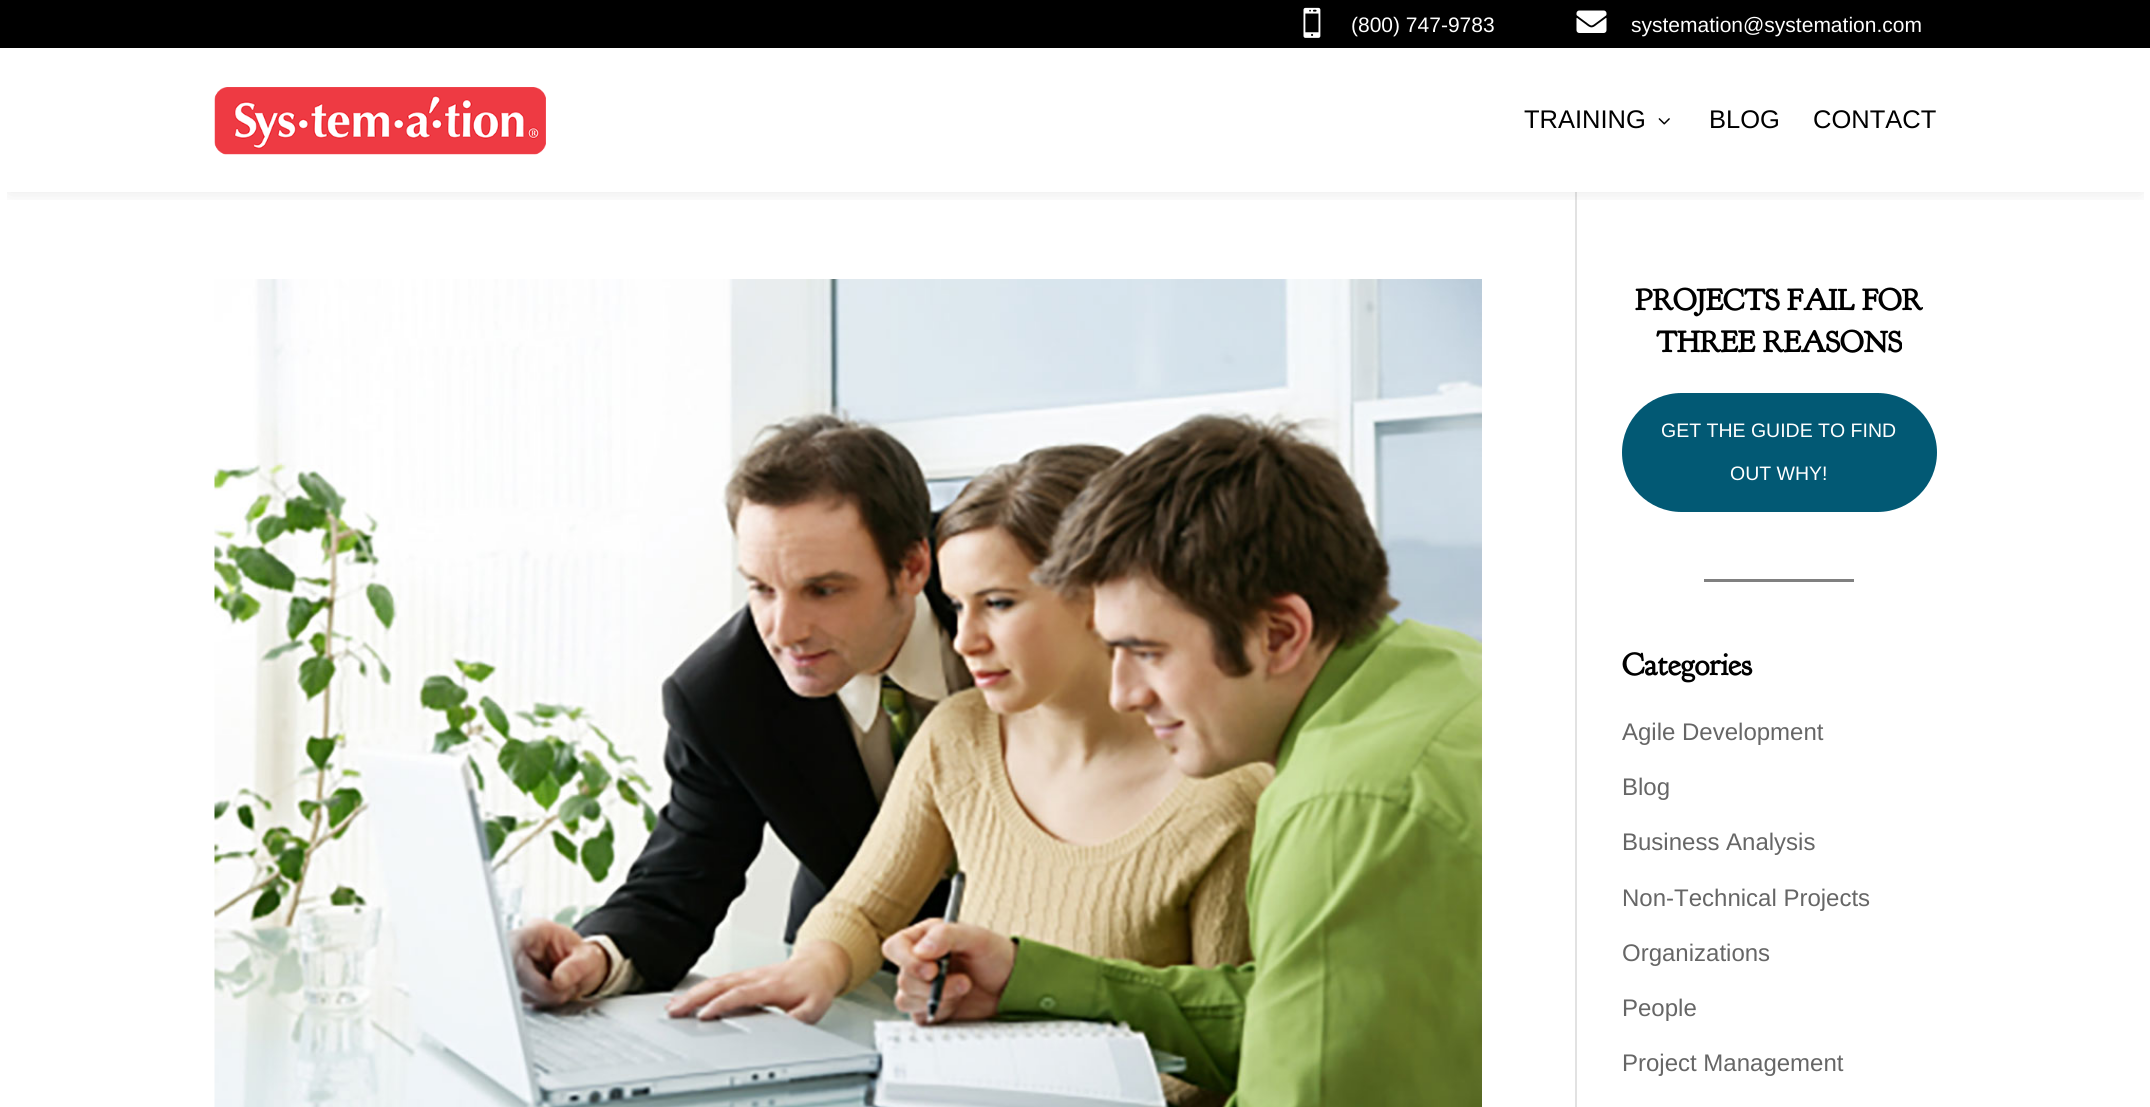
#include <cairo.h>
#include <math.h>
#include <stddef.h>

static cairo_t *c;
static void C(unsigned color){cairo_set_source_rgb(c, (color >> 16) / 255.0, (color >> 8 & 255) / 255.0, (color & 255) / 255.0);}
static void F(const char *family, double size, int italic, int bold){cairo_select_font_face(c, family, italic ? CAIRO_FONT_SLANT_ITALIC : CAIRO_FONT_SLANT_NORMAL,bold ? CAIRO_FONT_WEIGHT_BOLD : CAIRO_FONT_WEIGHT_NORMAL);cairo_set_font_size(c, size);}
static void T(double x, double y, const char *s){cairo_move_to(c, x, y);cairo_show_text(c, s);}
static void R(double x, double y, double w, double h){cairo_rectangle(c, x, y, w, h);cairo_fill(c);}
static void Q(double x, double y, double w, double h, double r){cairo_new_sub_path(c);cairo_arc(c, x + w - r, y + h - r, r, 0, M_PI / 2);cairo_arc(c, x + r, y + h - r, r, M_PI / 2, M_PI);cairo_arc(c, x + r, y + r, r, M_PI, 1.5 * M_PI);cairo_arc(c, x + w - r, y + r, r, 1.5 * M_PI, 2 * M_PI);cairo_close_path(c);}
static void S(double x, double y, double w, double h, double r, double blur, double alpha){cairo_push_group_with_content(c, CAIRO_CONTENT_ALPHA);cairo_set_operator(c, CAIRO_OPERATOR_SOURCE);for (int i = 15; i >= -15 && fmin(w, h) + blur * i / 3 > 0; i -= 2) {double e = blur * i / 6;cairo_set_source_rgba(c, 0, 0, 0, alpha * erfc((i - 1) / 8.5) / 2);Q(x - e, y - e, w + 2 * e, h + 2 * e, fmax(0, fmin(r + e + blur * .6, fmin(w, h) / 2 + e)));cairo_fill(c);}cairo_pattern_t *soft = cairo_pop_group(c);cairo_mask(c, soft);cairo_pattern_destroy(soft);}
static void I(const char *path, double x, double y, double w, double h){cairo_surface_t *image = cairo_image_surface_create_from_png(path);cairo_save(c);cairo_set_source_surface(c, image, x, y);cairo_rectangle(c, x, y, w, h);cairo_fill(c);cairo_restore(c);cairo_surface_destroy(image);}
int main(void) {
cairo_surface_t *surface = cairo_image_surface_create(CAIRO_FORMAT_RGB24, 2150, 1107);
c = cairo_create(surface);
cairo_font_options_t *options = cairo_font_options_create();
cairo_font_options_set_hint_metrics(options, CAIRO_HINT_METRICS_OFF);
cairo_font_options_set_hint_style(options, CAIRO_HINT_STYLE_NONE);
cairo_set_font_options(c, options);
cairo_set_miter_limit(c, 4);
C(0xffffff);
cairo_paint(c);
C(0x000000);
R(0,0,2150,48);
I("1.png",1303,7,18,31);
F("Liberation Sans",21,0,0);
C(0xffffff);
T(1351,32,"(800) 747-9783");
I("2.png",1576,10,31,23);
T(1631,32,"systemation@systemation.com");
C(0xe2e2e2);
R(1575,192,2,915);
cairo_save(c);
cairo_rectangle(c,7,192,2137,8);
cairo_clip(c);
C(0x000000);
S(9,66,2133,126,0,9,.1);
cairo_restore(c);
I("3.png",214,87,332,68);
F("Liberation Sans",25.5,0,0);
C(0x000000);
T(1524,128,"TRAINING");
I("4.png",1658,118,12,7);
T(1709,128,"BLOG");
T(1813,128,"CONTACT");
I("5.png",214,279,1268,828);
F("Goudy Bookletter 1911",30,0,1);
T(1635,310,"PROJECTS FAIL FOR");
T(1656,352,"THREE REASONS");
C(0x025974);
Q(1622,393,315,119,59.5);
cairo_fill(c);
F("Liberation Sans",19.5,0,0);
C(0xffffff);
T(1661,437,"GET THE GUIDE TO FIND");
T(1730,480,"OUT WHY!");
C(0x808080);
R(1704,579,150,3);
F("Goudy Bookletter 1911",31.5,0,1);
C(0x000000);
T(1622,675,"Categories");
F("Liberation Sans",24,0,0);
C(0x666666);
T(1622,740,"Agile Development");
T(1622,795,"Blog");
T(1622,850,"Business Analysis");
T(1622,906,"Non-Technical Projects");
T(1622,961,"Organizations");
T(1622,1016,"People");
T(1622,1071,"Project Management");
cairo_surface_write_to_png(surface, "o.png");
cairo_font_options_destroy(options);
cairo_destroy(c);
cairo_surface_destroy(surface);
return 0;
}
